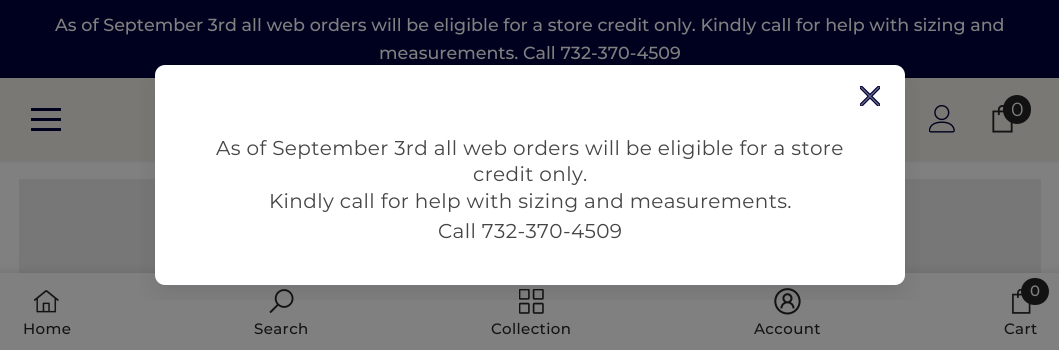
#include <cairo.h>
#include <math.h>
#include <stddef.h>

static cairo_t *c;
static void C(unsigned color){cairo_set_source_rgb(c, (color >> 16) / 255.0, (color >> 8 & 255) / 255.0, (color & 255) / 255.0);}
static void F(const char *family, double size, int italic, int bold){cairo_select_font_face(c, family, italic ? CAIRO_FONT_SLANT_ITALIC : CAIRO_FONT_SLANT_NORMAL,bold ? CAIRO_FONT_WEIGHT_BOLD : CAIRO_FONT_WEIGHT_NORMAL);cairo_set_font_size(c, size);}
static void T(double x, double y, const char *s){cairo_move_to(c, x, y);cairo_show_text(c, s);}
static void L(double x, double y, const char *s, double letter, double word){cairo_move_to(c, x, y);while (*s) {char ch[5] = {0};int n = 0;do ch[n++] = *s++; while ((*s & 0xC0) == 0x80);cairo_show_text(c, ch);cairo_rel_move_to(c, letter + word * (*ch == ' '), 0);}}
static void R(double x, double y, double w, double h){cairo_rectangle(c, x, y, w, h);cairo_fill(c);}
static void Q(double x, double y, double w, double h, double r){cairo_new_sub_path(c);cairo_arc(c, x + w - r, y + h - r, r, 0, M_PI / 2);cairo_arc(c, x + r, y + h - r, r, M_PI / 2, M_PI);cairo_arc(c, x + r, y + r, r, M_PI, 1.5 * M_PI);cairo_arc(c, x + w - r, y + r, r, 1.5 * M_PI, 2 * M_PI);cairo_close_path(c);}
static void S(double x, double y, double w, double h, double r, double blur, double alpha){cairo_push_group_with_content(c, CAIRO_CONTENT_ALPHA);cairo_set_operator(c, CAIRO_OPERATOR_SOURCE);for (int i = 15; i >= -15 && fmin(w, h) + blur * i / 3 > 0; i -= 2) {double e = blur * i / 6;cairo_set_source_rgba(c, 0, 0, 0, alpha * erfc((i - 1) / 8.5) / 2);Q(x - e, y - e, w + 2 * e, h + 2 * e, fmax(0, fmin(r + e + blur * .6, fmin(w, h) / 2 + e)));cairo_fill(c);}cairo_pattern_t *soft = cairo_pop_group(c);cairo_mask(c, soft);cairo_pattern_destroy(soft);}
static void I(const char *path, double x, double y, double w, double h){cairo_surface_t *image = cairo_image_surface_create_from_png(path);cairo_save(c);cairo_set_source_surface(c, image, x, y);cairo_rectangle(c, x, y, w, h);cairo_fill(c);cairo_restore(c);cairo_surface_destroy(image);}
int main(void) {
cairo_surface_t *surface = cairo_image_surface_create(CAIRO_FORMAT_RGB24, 1059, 350);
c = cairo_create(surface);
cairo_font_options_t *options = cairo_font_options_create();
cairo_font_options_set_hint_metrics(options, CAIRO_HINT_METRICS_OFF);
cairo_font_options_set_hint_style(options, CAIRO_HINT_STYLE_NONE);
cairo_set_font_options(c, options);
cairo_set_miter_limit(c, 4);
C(0x808080);
cairo_paint(c);
C(0x00011e);
R(0,0,1059,78);
F("Montserrat Medium",17.5,0,0);
C(0x808080);
T(55,31,"As of September 3rd all web orders will be eligible for a store credit only. Kindly call for help with sizing and");
T(379,59,"measurements. Call 732-370-4509");
C(0x000000);
S(0,79,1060,82,0,2,.1);
C(0x797874);
R(0,78,1059,82);
C(0x00011e);
R(31,118,30,3);
R(31,108,30,3);
R(31,128,30,3);
I("1.png",929,105,26,28);
I("2.png",992,105,21,28);
C(0x121212);
Q(1003,95,28,29,14);
cairo_fill(c);
F("Montserrat",19,0,0);
C(0x808080);
T(1011,116,"0");
C(0x777777);
R(19,179,1022,94);
C(0x000000);
S(0,273,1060,77,0,5.5,.12);
C(0x808080);
R(0,273,1059,77);
I("3.png",34,290,25,23);
F("Montserrat Medium",15,0,0);
C(0x121212);
L(23,334,"Home",.38,0);
I("4.png",269,289,25,25);
L(254,334,"Search",.38,0);
I("5.png",519,289,25,25);
L(491,334,"Collection",.38,0);
I("6.png",774,288,27,27);
L(754,334,"Account",.38,0);
I("7.png",1012,289,19,25);
Q(1021,278,28,27,13.5);
cairo_fill(c);
C(0x808080);
T(1030,296,"0");
C(0x121212);
L(1004,334,"Cart",.38,0);
cairo_save(c);
cairo_rectangle(c,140,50,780,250);
cairo_clip(c);
C(0x121127);
S(155,75,750,220,10,12.5,.1);
cairo_restore(c);
C(0xffffff);
Q(155,65,750,220,10);
cairo_fill(c);
I("8.png",860,86,20,20);
F("Montserrat",20,0,0);
C(0x454545);
L(216,155,"As of September 3rd all web orders will be eligible for a store",.38,0);
L(473,181,"credit only.",.38,0);
L(269,208,"Kindly call for help with sizing and measurements.",.38,0);
L(438,238,"Call 732-370-4509",.38,0);
cairo_surface_write_to_png(surface, "o.png");
cairo_font_options_destroy(options);
cairo_destroy(c);
cairo_surface_destroy(surface);
return 0;
}
